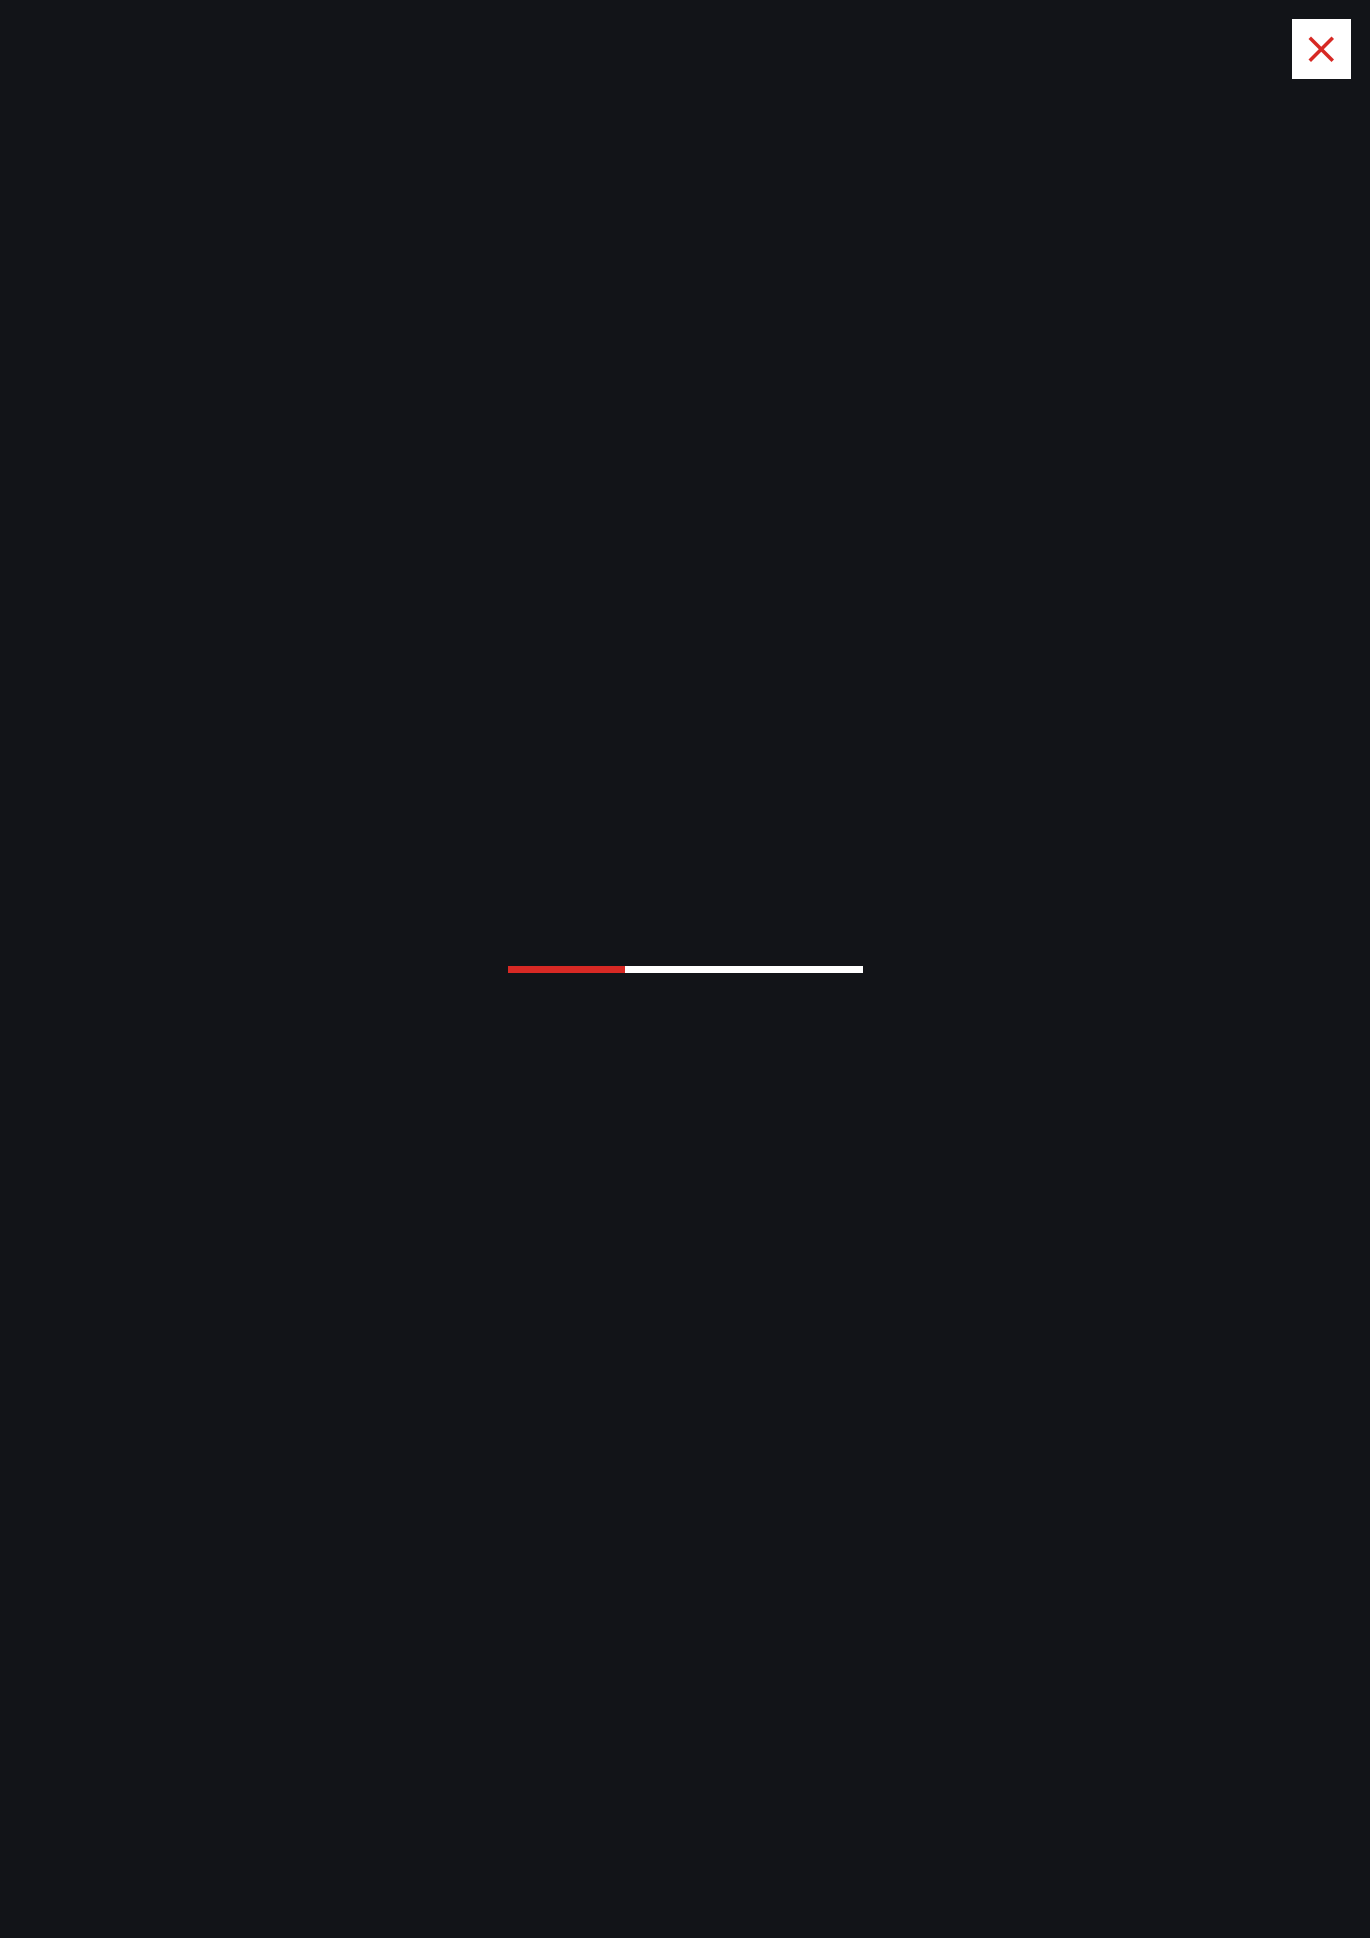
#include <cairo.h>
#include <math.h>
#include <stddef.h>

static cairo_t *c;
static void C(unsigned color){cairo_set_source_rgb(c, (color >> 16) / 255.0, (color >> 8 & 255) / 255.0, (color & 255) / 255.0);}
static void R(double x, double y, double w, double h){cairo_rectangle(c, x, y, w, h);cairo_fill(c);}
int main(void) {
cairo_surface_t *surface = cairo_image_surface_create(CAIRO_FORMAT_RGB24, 1370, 1938);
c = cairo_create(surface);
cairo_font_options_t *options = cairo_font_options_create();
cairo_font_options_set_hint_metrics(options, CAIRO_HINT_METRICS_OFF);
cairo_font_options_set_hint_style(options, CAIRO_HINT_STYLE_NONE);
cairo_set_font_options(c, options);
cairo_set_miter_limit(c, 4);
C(0x121418);
cairo_paint(c);
C(0xffffff);
R(1292,19,59,60);
C(0xd72924);
cairo_new_path(c);
cairo_move_to(c,1308.5,59.5);
cairo_line_to(c,1331.5,36.5);
cairo_line_to(c,1334,39);
cairo_line_to(c,1311,62);
cairo_close_path(c);
cairo_fill(c);
cairo_new_path(c);
cairo_move_to(c,1331.5,62);
cairo_line_to(c,1308.5,39);
cairo_line_to(c,1311,36.5);
cairo_line_to(c,1334,59.5);
cairo_close_path(c);
cairo_fill(c);
C(0xffffff);
R(625,966,238,7);
C(0xd72924);
R(508,966,117,7);
cairo_surface_write_to_png(surface, "o.png");
cairo_font_options_destroy(options);
cairo_destroy(c);
cairo_surface_destroy(surface);
return 0;
}
